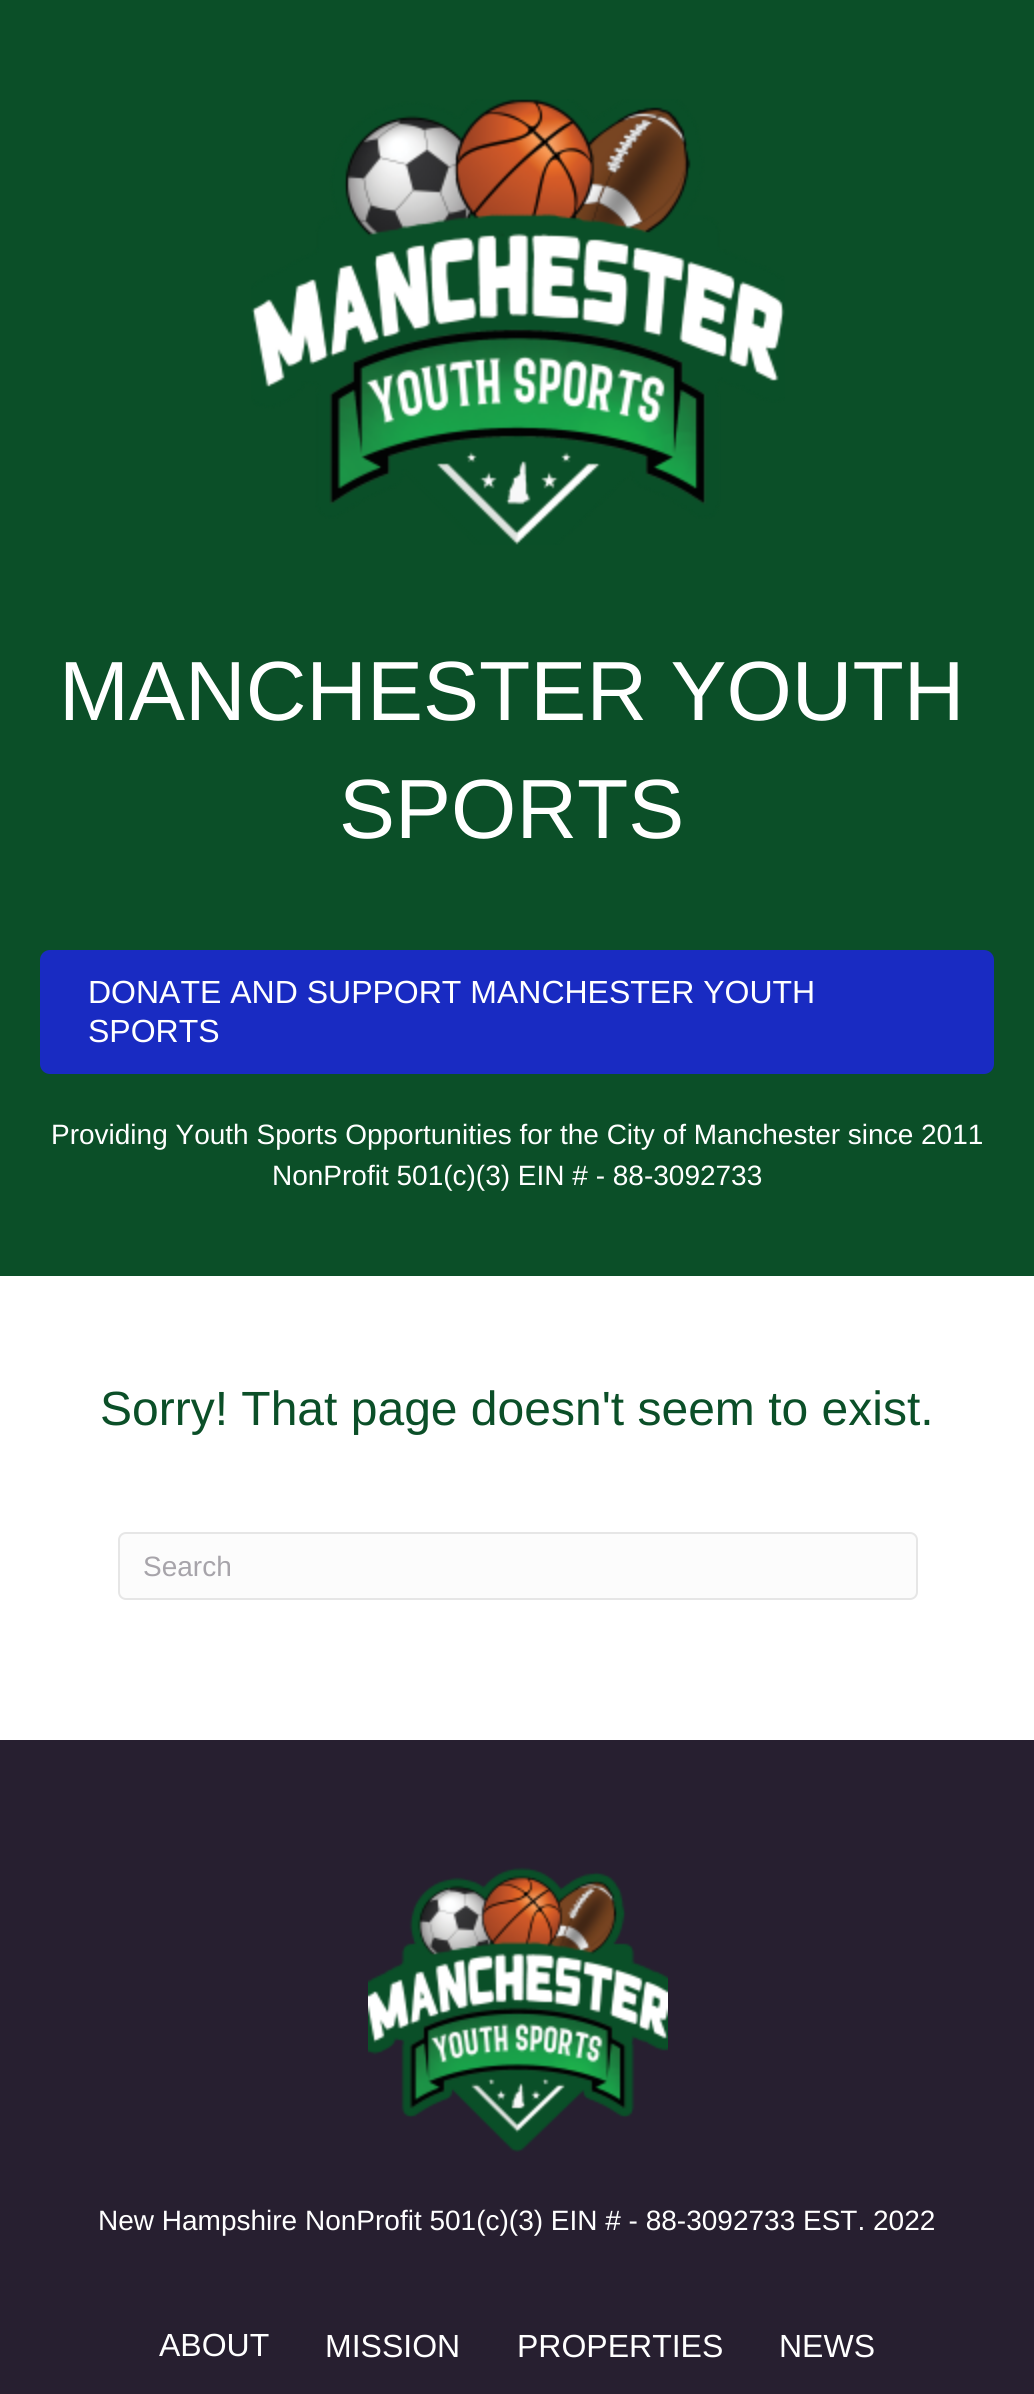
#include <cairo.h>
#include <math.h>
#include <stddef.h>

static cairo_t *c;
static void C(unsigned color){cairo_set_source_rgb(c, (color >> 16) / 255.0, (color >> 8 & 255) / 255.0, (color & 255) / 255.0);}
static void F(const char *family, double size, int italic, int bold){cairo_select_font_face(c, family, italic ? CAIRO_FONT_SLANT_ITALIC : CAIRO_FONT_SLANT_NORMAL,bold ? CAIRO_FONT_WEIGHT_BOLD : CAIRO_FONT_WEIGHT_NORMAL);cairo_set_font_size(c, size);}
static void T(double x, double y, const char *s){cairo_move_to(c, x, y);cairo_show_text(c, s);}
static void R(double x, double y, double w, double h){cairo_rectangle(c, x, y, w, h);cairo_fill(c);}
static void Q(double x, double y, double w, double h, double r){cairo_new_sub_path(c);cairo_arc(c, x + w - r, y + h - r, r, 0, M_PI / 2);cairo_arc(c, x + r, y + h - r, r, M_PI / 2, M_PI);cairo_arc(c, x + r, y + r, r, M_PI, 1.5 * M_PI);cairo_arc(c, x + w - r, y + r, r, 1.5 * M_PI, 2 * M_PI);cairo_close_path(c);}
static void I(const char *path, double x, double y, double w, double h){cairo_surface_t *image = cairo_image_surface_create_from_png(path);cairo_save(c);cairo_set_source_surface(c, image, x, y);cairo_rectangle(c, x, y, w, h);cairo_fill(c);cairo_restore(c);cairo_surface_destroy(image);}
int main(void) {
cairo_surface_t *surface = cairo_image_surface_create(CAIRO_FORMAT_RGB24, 1034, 2394);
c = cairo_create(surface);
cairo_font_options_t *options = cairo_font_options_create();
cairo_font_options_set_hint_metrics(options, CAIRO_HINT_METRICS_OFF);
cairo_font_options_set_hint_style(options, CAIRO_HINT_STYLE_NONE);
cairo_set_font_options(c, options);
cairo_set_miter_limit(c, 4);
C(0xffffff);
cairo_paint(c);
C(0x0b4f28);
R(0,0,1034,1276);
I("1.png",251,99,534,446);
F("Liberation Sans",84,0,0);
C(0xffffff);
T(59,720,"MANCHESTER YOUTH");
T(339,838,"SPORTS");
C(0x192bc2);
Q(40,950,954,124,10);
cairo_fill(c);
F("Liberation Sans",32,0,0);
C(0xffffff);
T(88,1003,"DONATE AND SUPPORT MANCHESTER YOUTH");
T(88,1042,"SPORTS");
F("Liberation Sans",28,0,0);
T(51,1144,"Providing Youth Sports Opportunities for the City of Manchester since 2011");
T(272,1185,"NonProfit 501(c)(3) EIN # - 88-3092733");
F("Liberation Sans",48,0,0);
C(0x0b4f28);
T(100,1425,"Sorry! That page doesn't seem to exist.");
C(0xfcfcfc);
Q(119,1533,798,66,7);
cairo_fill_preserve(c);
C(0xe6e6e6);
cairo_stroke(c);
F("Liberation Sans",28,0,0);
C(0xa7a4aa);
T(143,1576,"Search");
C(0x271f30);
R(0,1740,1034,654);
I("2.png",368,1867,300,285);
C(0xffffff);
T(98,2230,"New Hampshire NonProfit 501(c)(3) EIN # - 88-3092733 EST. 2022");
F("Liberation Sans",32,0,0);
T(159,2356,"ABOUT");
T(325,2357,"MISSION");
T(517,2357,"PROPERTIES");
T(779,2357,"NEWS");
cairo_surface_write_to_png(surface, "o.png");
cairo_font_options_destroy(options);
cairo_destroy(c);
cairo_surface_destroy(surface);
return 0;
}
